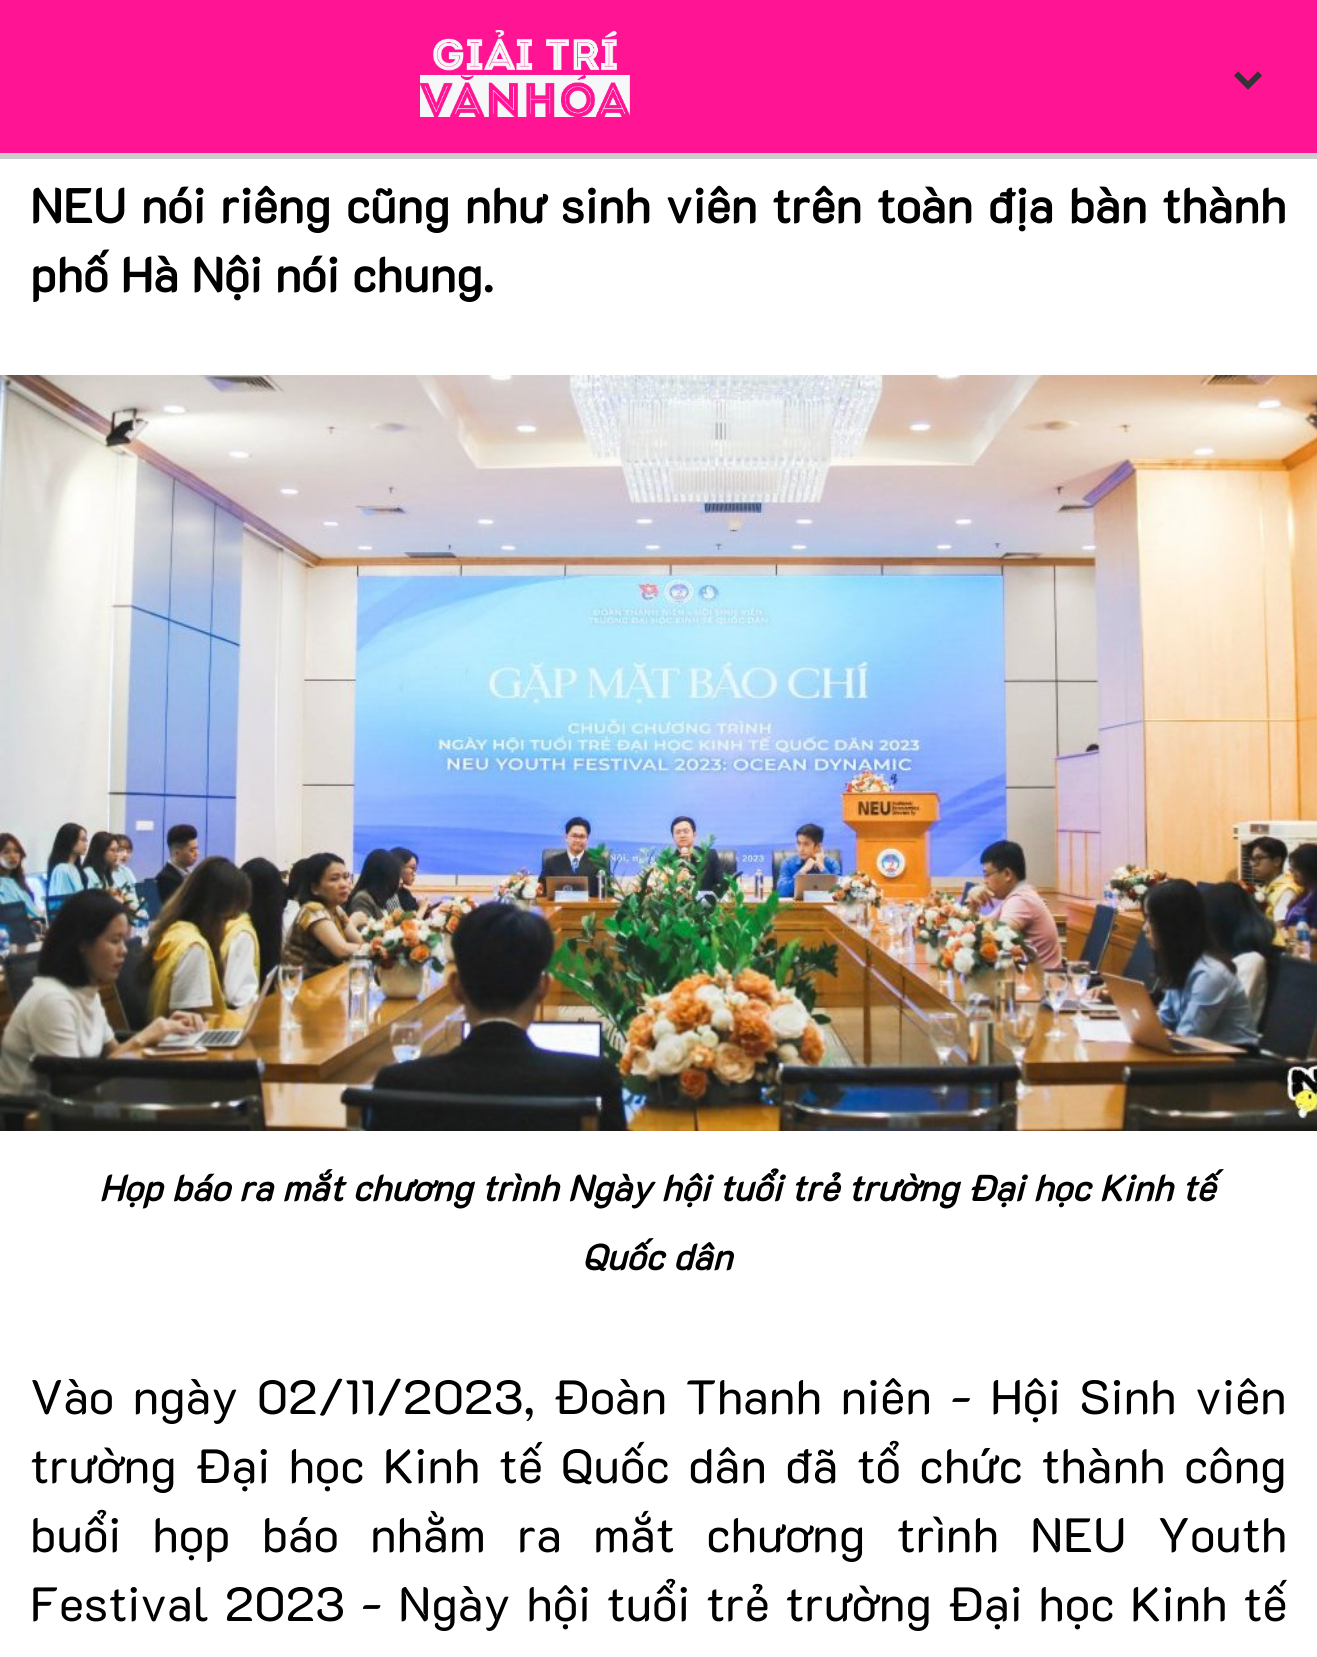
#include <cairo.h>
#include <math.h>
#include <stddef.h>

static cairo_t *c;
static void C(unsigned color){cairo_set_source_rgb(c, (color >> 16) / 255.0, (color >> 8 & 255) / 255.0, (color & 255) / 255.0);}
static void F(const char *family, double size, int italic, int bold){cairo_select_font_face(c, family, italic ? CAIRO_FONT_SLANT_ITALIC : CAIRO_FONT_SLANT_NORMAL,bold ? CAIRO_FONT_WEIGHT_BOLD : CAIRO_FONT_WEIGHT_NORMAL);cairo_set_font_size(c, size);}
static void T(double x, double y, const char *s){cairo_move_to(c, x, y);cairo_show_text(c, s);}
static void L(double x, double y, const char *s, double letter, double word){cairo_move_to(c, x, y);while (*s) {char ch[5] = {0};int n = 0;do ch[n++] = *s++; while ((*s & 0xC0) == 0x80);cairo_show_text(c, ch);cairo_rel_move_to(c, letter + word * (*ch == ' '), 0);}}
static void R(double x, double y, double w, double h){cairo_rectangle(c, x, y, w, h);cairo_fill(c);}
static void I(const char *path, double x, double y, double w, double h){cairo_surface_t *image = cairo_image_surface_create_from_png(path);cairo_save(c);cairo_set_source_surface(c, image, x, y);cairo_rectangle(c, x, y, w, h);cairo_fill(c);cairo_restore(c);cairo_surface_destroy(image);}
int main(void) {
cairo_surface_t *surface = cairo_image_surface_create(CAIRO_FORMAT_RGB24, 1317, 1657);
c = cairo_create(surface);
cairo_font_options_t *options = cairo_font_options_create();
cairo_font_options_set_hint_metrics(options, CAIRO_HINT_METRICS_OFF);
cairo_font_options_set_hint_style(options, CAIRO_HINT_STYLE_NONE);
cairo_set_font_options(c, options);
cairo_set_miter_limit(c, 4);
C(0xffffff);
cairo_paint(c);
C(0xff1493);
R(0,0,1317,153);
C(0xcccccc);
R(0,153,1317,6);
cairo_new_path(c);
cairo_move_to(c,1236,73.5);
cairo_line_to(c,1248,85.5);
cairo_line_to(c,1260,73.5);
C(0x333333);
cairo_set_line_width(c,6);
cairo_stroke(c);
I("1.png",420,30,210,87);
F("K2D",48,0,1);
C(0x000000);
L(30,223,"NEU nói riêng cũng như sinh viên trên toàn địa bàn thành",0,2.25);
T(30,292,"phố Hà Nội nói chung.");
I("2.png",0,375,1317,756);
F("K2D",36,1,1);
T(99,1201,"Họp báo ra mắt chương trình Ngày hội tuổi trẻ trường Đại học Kinh tế");
T(582,1270,"Quốc dân");
F("K2D",48,0,0);
L(30,1414,"Vào ngày 02/11/2023, Đoàn Thanh niên - Hội Sinh viên",0,6);
L(30,1483,"trường Đại học Kinh tế Quốc dân đã tổ chức thành công",0,5.9);
L(30,1552,"buổi họp báo nhằm ra mắt chương trình NEU Youth",0,18.75);
L(30,1621,"Festival 2023 - Ngày hội tuổi trẻ trường Đại học Kinh tế",0,3.25);
cairo_surface_write_to_png(surface, "o.png");
cairo_font_options_destroy(options);
cairo_destroy(c);
cairo_surface_destroy(surface);
return 0;
}
